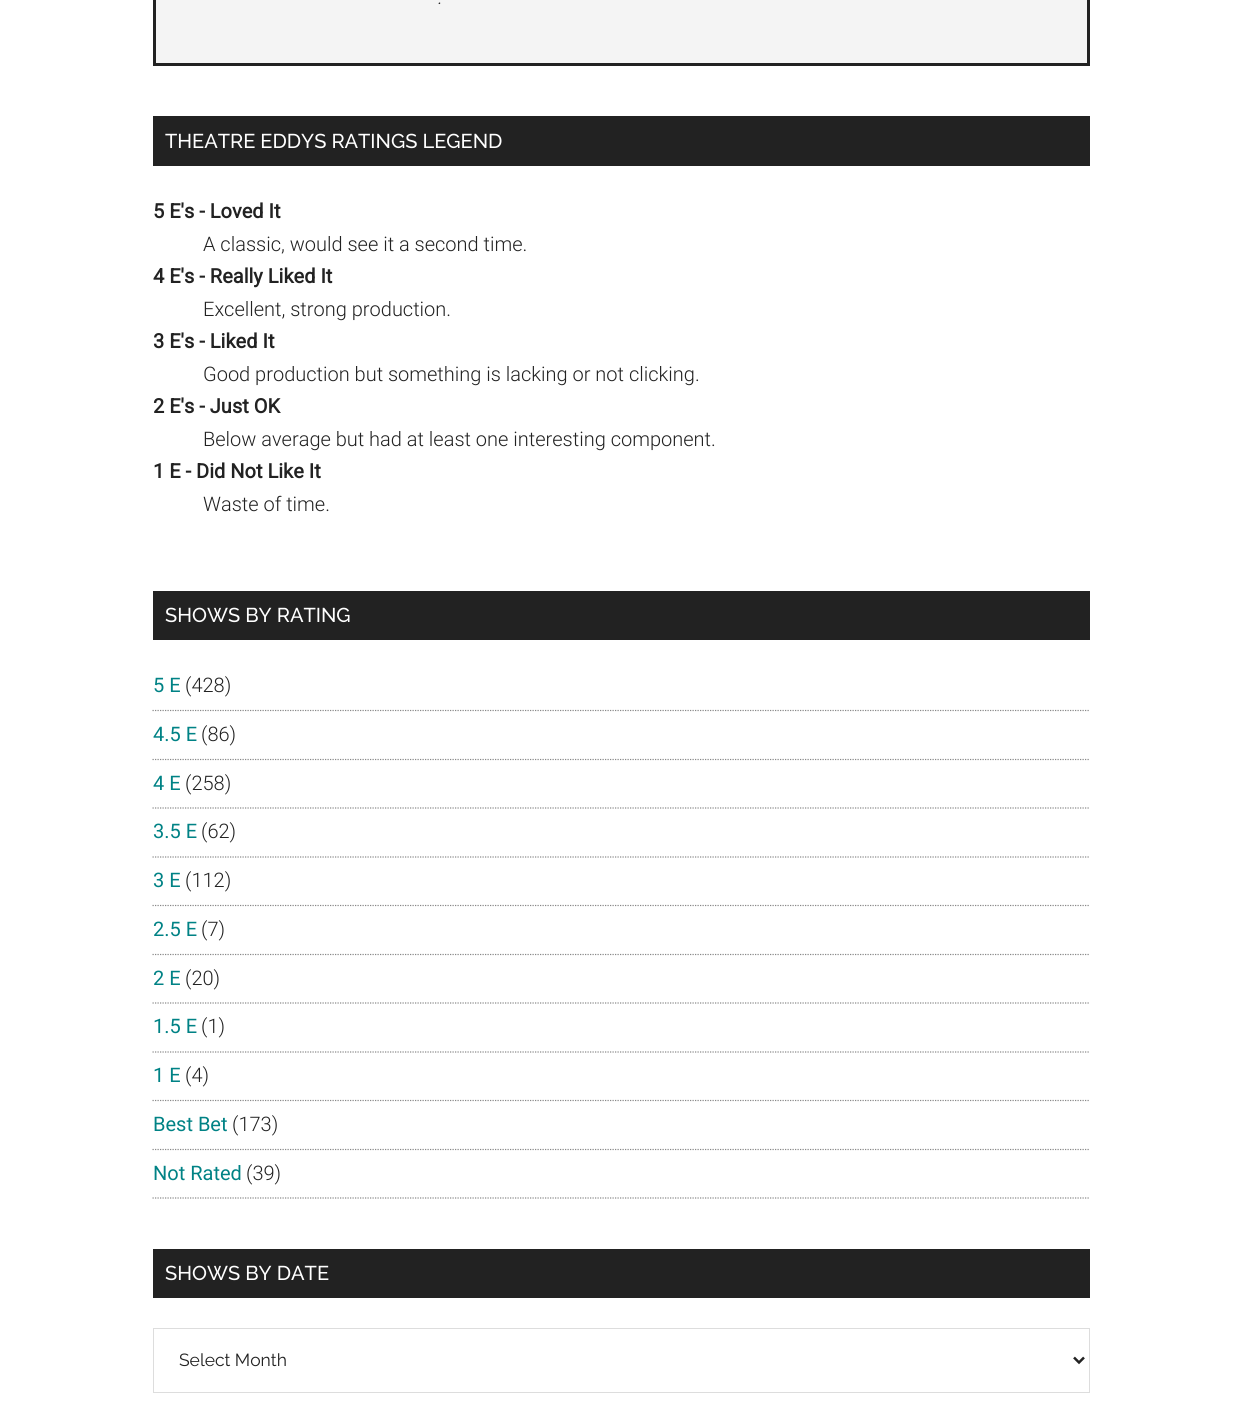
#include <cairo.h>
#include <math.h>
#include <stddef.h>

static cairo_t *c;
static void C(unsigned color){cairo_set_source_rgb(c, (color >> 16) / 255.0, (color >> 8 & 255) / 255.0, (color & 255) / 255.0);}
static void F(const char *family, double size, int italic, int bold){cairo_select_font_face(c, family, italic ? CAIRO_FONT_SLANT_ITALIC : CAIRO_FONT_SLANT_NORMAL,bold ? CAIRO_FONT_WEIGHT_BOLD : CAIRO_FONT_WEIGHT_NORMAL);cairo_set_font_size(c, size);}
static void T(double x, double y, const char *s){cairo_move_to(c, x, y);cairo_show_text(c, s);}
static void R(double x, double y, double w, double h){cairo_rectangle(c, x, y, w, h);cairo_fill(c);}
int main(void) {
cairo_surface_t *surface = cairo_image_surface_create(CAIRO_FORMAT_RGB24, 1242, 1427);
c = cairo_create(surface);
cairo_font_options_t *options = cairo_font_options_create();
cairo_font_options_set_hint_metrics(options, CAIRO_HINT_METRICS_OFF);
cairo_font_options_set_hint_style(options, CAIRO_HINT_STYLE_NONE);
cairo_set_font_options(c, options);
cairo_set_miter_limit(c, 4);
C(0xffffff);
cairo_paint(c);
C(0xf4f4f4);
cairo_rectangle(c,154.5,-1.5,934,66);
cairo_fill_preserve(c);
C(0x222222);
cairo_set_line_width(c,3);
cairo_stroke(c);
F("Roboto Light",20,1,0);
T(437,4,".");
R(153,116,937,50);
F("Raleway Medium",20,0,0);
C(0xffffff);
T(165,148,"THEATRE EDDYS RATINGS LEGEND");
F("Roboto",20,0,1);
C(0x222222);
T(153,218,"5 E's - Loved It");
F("Roboto Light",20,0,0);
T(203,251,"A classic, would see it a second time.");
F("Roboto",20,0,1);
T(153,283,"4 E's - Really Liked It");
F("Roboto Light",20,0,0);
T(203,316,"Excellent, strong production.");
F("Roboto",20,0,1);
T(153,348,"3 E's - Liked It");
F("Roboto Light",20,0,0);
T(203,381,"Good production but something is lacking or not clicking.");
F("Roboto",20,0,1);
T(153,413,"2 E's - Just OK");
F("Roboto Light",20,0,0);
T(203,446,"Below average but had at least one interesting component.");
F("Roboto",20,0,1);
T(153,478,"1 E - Did Not Like It");
F("Roboto Light",20,0,0);
T(203,511,"Waste of time.");
R(153,591,937,49);
F("Raleway Medium",20,0,0);
C(0xffffff);
T(165,622,"SHOWS BY RATING");
cairo_new_path(c);
cairo_move_to(c,152.5,710.5);
cairo_line_to(c,1090,710.5);
C(0x888888);
cairo_set_line_width(c,1.2);
cairo_set_dash(c,(double[]){1.25,1.25},2,0);
cairo_stroke(c);
F("Roboto",20,0,0);
C(0x008285);
T(153,692,"5 E");
F("Roboto Light",20,0,0);
C(0x222222);
T(185,692,"(428)");
cairo_new_path(c);
cairo_move_to(c,152.5,759.5);
cairo_line_to(c,1090,759.5);
C(0x888888);
cairo_stroke(c);
F("Roboto",20,0,0);
C(0x008285);
T(153,741,"4.5 E");
F("Roboto Light",20,0,0);
C(0x222222);
T(201,741,"(86)");
cairo_new_path(c);
cairo_move_to(c,152.5,808);
cairo_line_to(c,1090,808);
C(0x888888);
cairo_stroke(c);
F("Roboto",20,0,0);
C(0x008285);
T(153,790,"4 E");
F("Roboto Light",20,0,0);
C(0x222222);
T(185,790,"(258)");
cairo_new_path(c);
cairo_move_to(c,152.5,857);
cairo_line_to(c,1090,857);
C(0x888888);
cairo_stroke(c);
F("Roboto",20,0,0);
C(0x008285);
T(153,838,"3.5 E");
F("Roboto Light",20,0,0);
C(0x222222);
T(201,838,"(62)");
cairo_new_path(c);
cairo_move_to(c,152.5,905.5);
cairo_line_to(c,1090,905.5);
C(0x888888);
cairo_stroke(c);
F("Roboto",20,0,0);
C(0x008285);
T(153,887,"3 E");
F("Roboto Light",20,0,0);
C(0x222222);
T(185,887,"(112)");
cairo_new_path(c);
cairo_move_to(c,152.5,954.5);
cairo_line_to(c,1090,954.5);
C(0x888888);
cairo_stroke(c);
F("Roboto",20,0,0);
C(0x008285);
T(153,936,"2.5 E");
F("Roboto Light",20,0,0);
C(0x222222);
T(201,936,"(7)");
cairo_new_path(c);
cairo_move_to(c,152.5,1003);
cairo_line_to(c,1090,1003);
C(0x888888);
cairo_stroke(c);
F("Roboto",20,0,0);
C(0x008285);
T(153,985,"2 E");
F("Roboto Light",20,0,0);
C(0x222222);
T(185,985,"(20)");
cairo_new_path(c);
cairo_move_to(c,152.5,1052);
cairo_line_to(c,1090,1052);
C(0x888888);
cairo_stroke(c);
F("Roboto",20,0,0);
C(0x008285);
T(153,1033,"1.5 E");
F("Roboto Light",20,0,0);
C(0x222222);
T(201,1033,"(1)");
cairo_new_path(c);
cairo_move_to(c,152.5,1100.5);
cairo_line_to(c,1090,1100.5);
C(0x888888);
cairo_stroke(c);
F("Roboto",20,0,0);
C(0x008285);
T(153,1082,"1 E");
F("Roboto Light",20,0,0);
C(0x222222);
T(185,1082,"(4)");
cairo_new_path(c);
cairo_move_to(c,152.5,1149.5);
cairo_line_to(c,1090,1149.5);
C(0x888888);
cairo_stroke(c);
F("Roboto",20,0,0);
C(0x008285);
T(153,1131,"Best Bet");
F("Roboto Light",20,0,0);
C(0x222222);
T(232,1131,"(173)");
cairo_new_path(c);
cairo_move_to(c,152.5,1198);
cairo_line_to(c,1090,1198);
C(0x888888);
cairo_stroke(c);
F("Roboto",20,0,0);
C(0x008285);
T(153,1180,"Not Rated");
F("Roboto Light",20,0,0);
C(0x222222);
T(246,1180,"(39)");
R(153,1249,937,49);
F("Raleway Medium",20,0,0);
C(0xffffff);
T(165,1280,"SHOWS BY DATE");
cairo_rectangle(c,153.5,1328.5,936,64);
C(0xdddddd);
cairo_set_line_width(c,1);
cairo_set_dash(c,NULL,0,0);
cairo_stroke(c);
cairo_new_path(c);
cairo_move_to(c,1074,1357.5);
cairo_line_to(c,1079,1362.5);
cairo_line_to(c,1084,1357.5);
C(0x222222);
cairo_set_line_width(c,2.5);
cairo_stroke(c);
F("Raleway",17.5,0,0);
T(179,1366,"Select Month");
cairo_surface_write_to_png(surface, "o.png");
cairo_font_options_destroy(options);
cairo_destroy(c);
cairo_surface_destroy(surface);
return 0;
}
